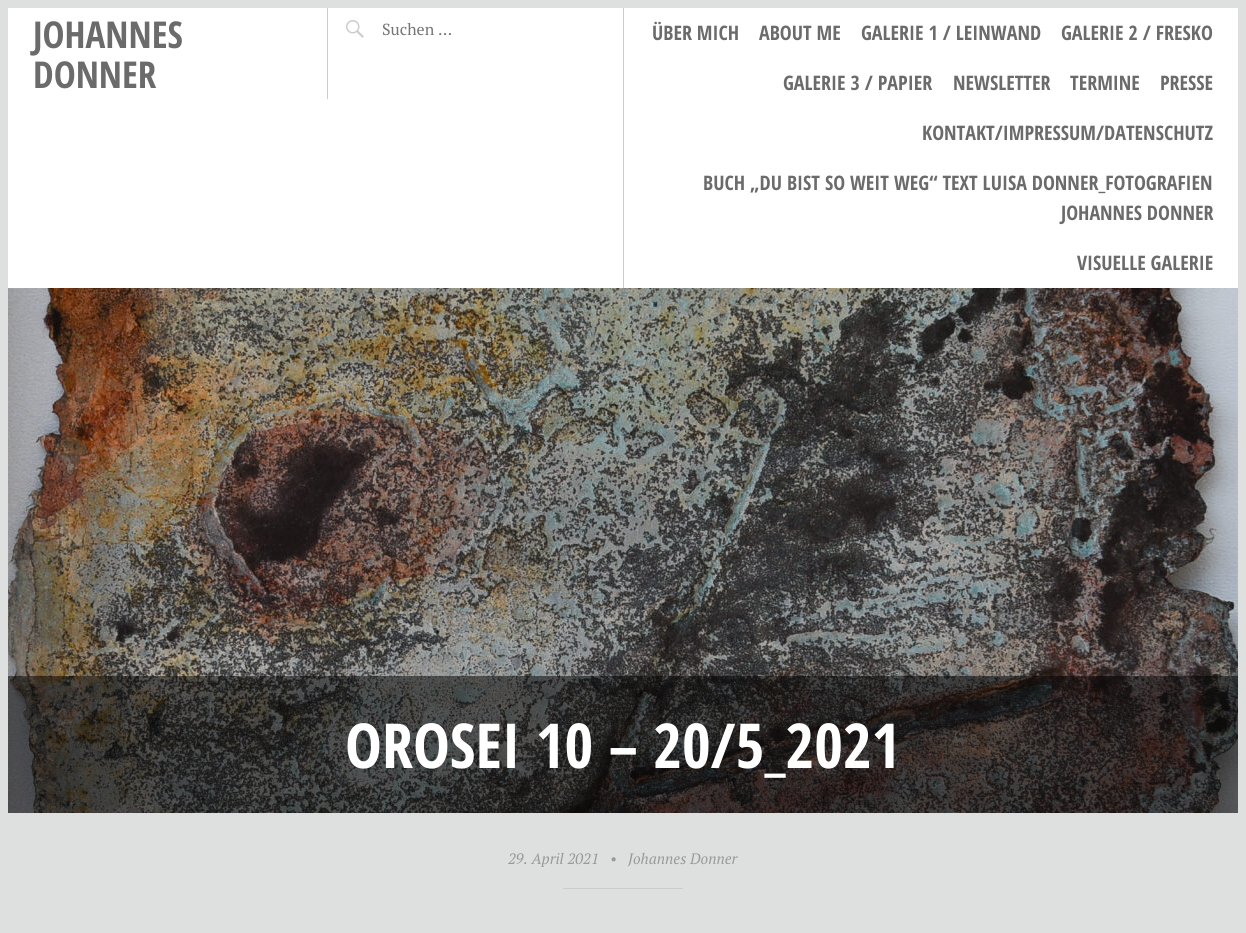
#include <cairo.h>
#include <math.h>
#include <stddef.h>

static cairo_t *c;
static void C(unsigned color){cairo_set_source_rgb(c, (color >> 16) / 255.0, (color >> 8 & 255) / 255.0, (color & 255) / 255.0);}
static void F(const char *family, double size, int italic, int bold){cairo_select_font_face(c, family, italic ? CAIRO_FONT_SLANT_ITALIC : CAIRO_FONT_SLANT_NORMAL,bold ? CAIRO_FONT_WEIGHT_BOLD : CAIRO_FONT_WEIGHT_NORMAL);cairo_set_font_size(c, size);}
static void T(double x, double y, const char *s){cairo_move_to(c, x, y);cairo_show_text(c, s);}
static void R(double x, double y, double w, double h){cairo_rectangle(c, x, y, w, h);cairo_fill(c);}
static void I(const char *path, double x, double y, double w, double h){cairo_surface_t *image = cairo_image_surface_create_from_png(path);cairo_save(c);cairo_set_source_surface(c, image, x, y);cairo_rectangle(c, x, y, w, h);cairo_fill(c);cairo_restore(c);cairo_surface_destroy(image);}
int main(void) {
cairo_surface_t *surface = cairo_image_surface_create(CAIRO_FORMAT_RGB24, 1246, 933);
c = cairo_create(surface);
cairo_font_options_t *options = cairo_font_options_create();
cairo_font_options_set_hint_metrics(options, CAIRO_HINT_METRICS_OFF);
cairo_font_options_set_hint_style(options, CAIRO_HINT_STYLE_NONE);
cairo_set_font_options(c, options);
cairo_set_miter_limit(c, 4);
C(0xdee0e0);
cairo_paint(c);
C(0xffffff);
R(8,8,1230,280);
C(0xcccccc);
R(327,8,1,91);
F("Open Sans Condensed",37,0,1);
C(0x6b6b6b);
T(33,48,"JOHANNES");
T(33,88,"DONNER");
I("1.png",346,20,18,18);
F("PT Serif",16,0,0);
C(0x757575);
T(382,35,"Suchen …");
C(0xcccccc);
R(623,8,1,280);
F("Open Sans Condensed",20,0,1);
C(0x6b6b6b);
T(652,40,"ÜBER MICH");
T(759,40,"ABOUT ME");
T(861,40,"GALERIE 1 / LEINWAND");
T(1061,40,"GALERIE 2 / FRESKO");
T(783,90,"GALERIE 3 / PAPIER");
T(953,90,"NEWSLETTER");
T(1070,90,"TERMINE");
T(1160,90,"PRESSE");
T(922,140,"KONTAKT/IMPRESSUM/DATENSCHUTZ");
T(703,190,"BUCH „DU BIST SO WEIT WEG“ TEXT LUISA DONNER_FOTOGRAFIEN");
T(1061,220,"JOHANNES DONNER");
T(1077,270,"VISUELLE GALERIE");
I("2.png",8,288,1230,525);
cairo_set_source_rgba(c,0,0,0,0.5);
R(8,676,1230,137);
F("Open Sans Condensed",62,0,1);
C(0xffffff);
T(345,768,"OROSEI 10 – 20/5_2021");
F("PT Serif",15,1,0);
C(0x999999);
T(508,864,"29. April 2021");
T(610,864,"•");
T(628,864,"Johannes Donner");
C(0xcccccc);
R(563,888,120,1);
cairo_surface_write_to_png(surface, "o.png");
cairo_font_options_destroy(options);
cairo_destroy(c);
cairo_surface_destroy(surface);
return 0;
}
